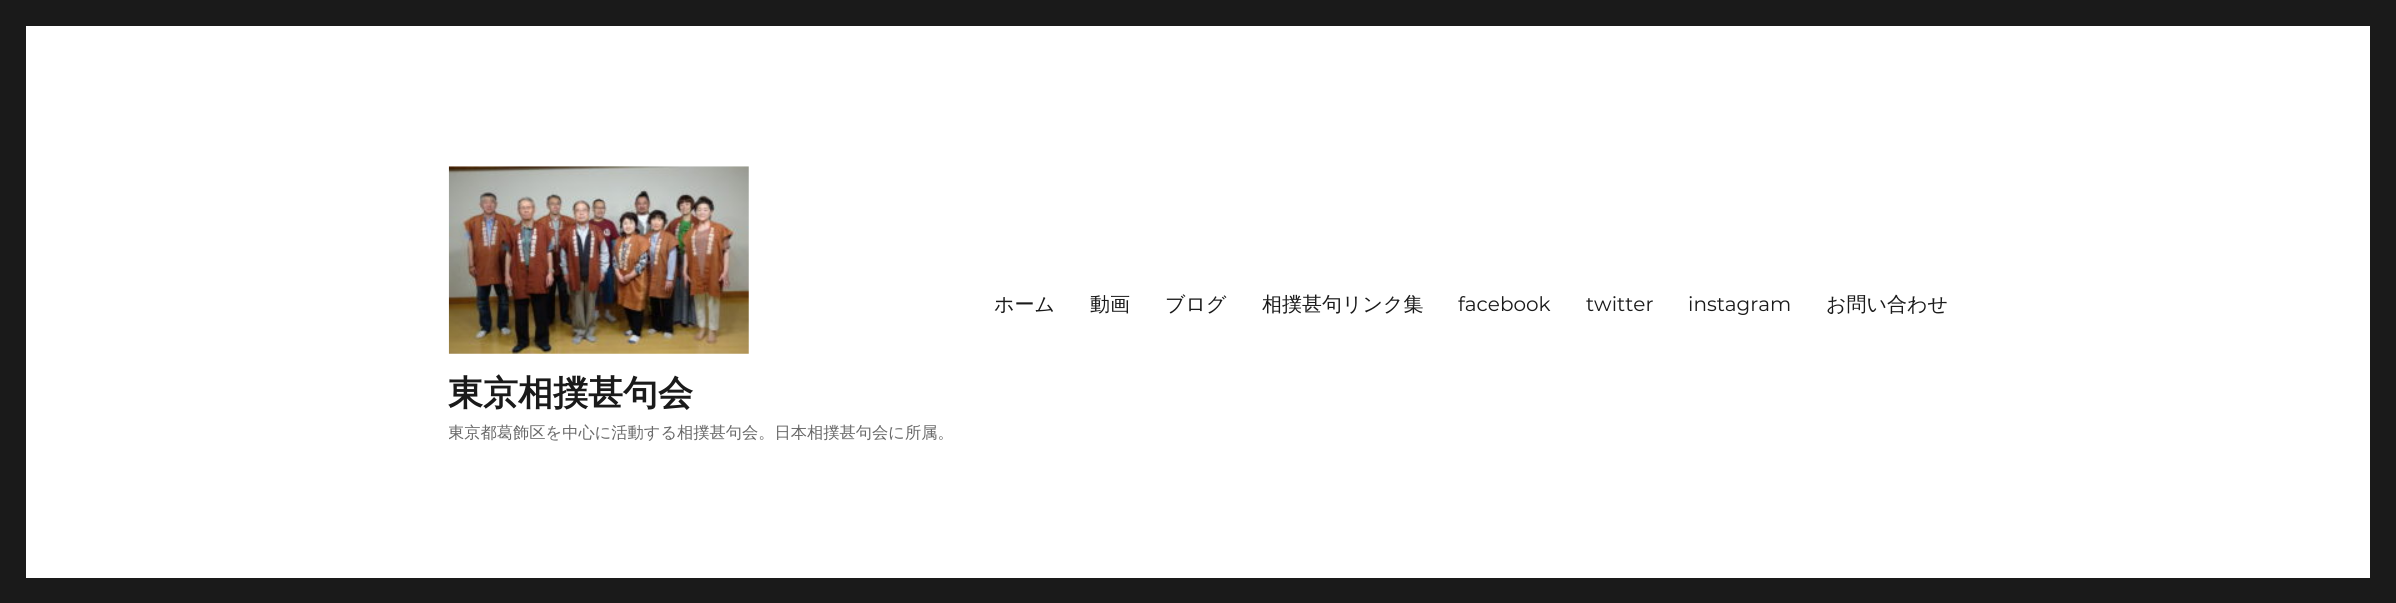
#include <cairo.h>
#include <math.h>
#include <stddef.h>

static cairo_t *c;
static void C(unsigned color){cairo_set_source_rgb(c, (color >> 16) / 255.0, (color >> 8 & 255) / 255.0, (color & 255) / 255.0);}
static void F(const char *family, double size, int italic, int bold){cairo_select_font_face(c, family, italic ? CAIRO_FONT_SLANT_ITALIC : CAIRO_FONT_SLANT_NORMAL,bold ? CAIRO_FONT_WEIGHT_BOLD : CAIRO_FONT_WEIGHT_NORMAL);cairo_set_font_size(c, size);}
static void T(double x, double y, const char *s){cairo_move_to(c, x, y);cairo_show_text(c, s);}
static void R(double x, double y, double w, double h){cairo_rectangle(c, x, y, w, h);cairo_fill(c);}
static void I(const char *path, double x, double y, double w, double h){cairo_surface_t *image = cairo_image_surface_create_from_png(path);cairo_save(c);cairo_set_source_surface(c, image, x, y);cairo_rectangle(c, x, y, w, h);cairo_fill(c);cairo_restore(c);cairo_surface_destroy(image);}
int main(void) {
cairo_surface_t *surface = cairo_image_surface_create(CAIRO_FORMAT_RGB24, 2396, 603);
c = cairo_create(surface);
cairo_font_options_t *options = cairo_font_options_create();
cairo_font_options_set_hint_metrics(options, CAIRO_HINT_METRICS_OFF);
cairo_font_options_set_hint_style(options, CAIRO_HINT_STYLE_NONE);
cairo_set_font_options(c, options);
cairo_set_miter_limit(c, 4);
C(0x1a1a1a);
cairo_paint(c);
C(0xffffff);
R(26,26,2344,552);
F("WenQuanYi Zen Hei Medium",20,0,0);
C(0x1a1a1a);
T(994,311,"ホーム");
T(1090,311,"動画");
T(1165,311,"ブログ");
T(1262,311,"相撲甚句リンク集");
F("Montserrat",20,0,0);
T(1458,311,"facebook");
T(1586,311,"twitter");
T(1688,311,"instagram");
F("WenQuanYi Zen Hei Medium",20,0,0);
T(1826,311,"お問い合わせ");
I("1.png",448,166,301,188);
F("WenQuanYi Zen Hei",35,0,1);
T(448,405,"東京相撲甚句会");
cairo_save(c);
cairo_rectangle(c,449,166,505,275);
cairo_clip(c);
F("WenQuanYi Zen Hei Medium",16.25,0,0);
C(0x686868);
T(448,438,"東京都葛飾区を中心に活動する相撲甚句会。日本相撲甚句会に所属。");
cairo_restore(c);
cairo_surface_write_to_png(surface, "o.png");
cairo_font_options_destroy(options);
cairo_destroy(c);
cairo_surface_destroy(surface);
return 0;
}
